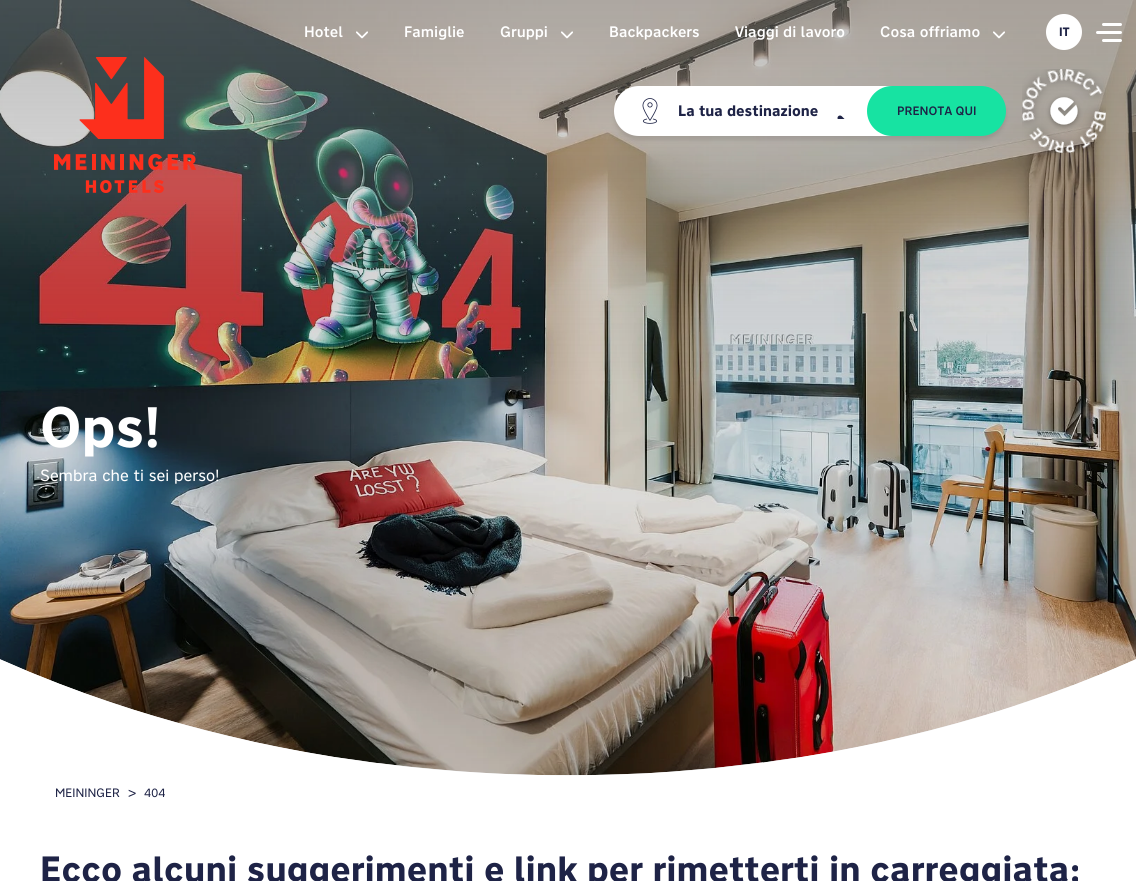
#include <cairo.h>
#include <math.h>
#include <stddef.h>

static cairo_t *c;
static void C(unsigned color){cairo_set_source_rgb(c, (color >> 16) / 255.0, (color >> 8 & 255) / 255.0, (color & 255) / 255.0);}
static void F(const char *family, double size, int italic, int bold){cairo_select_font_face(c, family, italic ? CAIRO_FONT_SLANT_ITALIC : CAIRO_FONT_SLANT_NORMAL,bold ? CAIRO_FONT_WEIGHT_BOLD : CAIRO_FONT_WEIGHT_NORMAL);cairo_set_font_size(c, size);}
static void T(double x, double y, const char *s){cairo_move_to(c, x, y);cairo_show_text(c, s);}
static void Q(double x, double y, double w, double h, double r){cairo_new_sub_path(c);cairo_arc(c, x + w - r, y + h - r, r, 0, M_PI / 2);cairo_arc(c, x + r, y + h - r, r, M_PI / 2, M_PI);cairo_arc(c, x + r, y + r, r, M_PI, 1.5 * M_PI);cairo_arc(c, x + w - r, y + r, r, 1.5 * M_PI, 2 * M_PI);cairo_close_path(c);}
static void S(double x, double y, double w, double h, double r, double blur, double alpha){cairo_push_group_with_content(c, CAIRO_CONTENT_ALPHA);cairo_set_operator(c, CAIRO_OPERATOR_SOURCE);for (int i = 15; i >= -15 && fmin(w, h) + blur * i / 3 > 0; i -= 2) {double e = blur * i / 6;cairo_set_source_rgba(c, 0, 0, 0, alpha * erfc((i - 1) / 8.5) / 2);Q(x - e, y - e, w + 2 * e, h + 2 * e, fmax(0, fmin(r + e + blur * .6, fmin(w, h) / 2 + e)));cairo_fill(c);}cairo_pattern_t *soft = cairo_pop_group(c);cairo_mask(c, soft);cairo_pattern_destroy(soft);}
static void I(const char *path, double x, double y, double w, double h){cairo_surface_t *image = cairo_image_surface_create_from_png(path);cairo_save(c);cairo_set_source_surface(c, image, x, y);cairo_rectangle(c, x, y, w, h);cairo_fill(c);cairo_restore(c);cairo_surface_destroy(image);}
int main(void) {
cairo_surface_t *surface = cairo_image_surface_create(CAIRO_FORMAT_RGB24, 1136, 881);
c = cairo_create(surface);
cairo_font_options_t *options = cairo_font_options_create();
cairo_font_options_set_hint_metrics(options, CAIRO_HINT_METRICS_OFF);
cairo_font_options_set_hint_style(options, CAIRO_HINT_STYLE_NONE);
cairo_set_font_options(c, options);
cairo_set_miter_limit(c, 4);
cairo_pattern_t *gradient;
C(0xffffff);
cairo_paint(c);
I("8.png",0,0,1136,775);
gradient = cairo_pattern_create_linear(568,0,568,775);
cairo_pattern_add_color_stop_rgba(gradient,0,0.49,0.49,0.49,.5);
cairo_pattern_add_color_stop_rgba(gradient,.25,0.49,0.49,0.49,.3);
cairo_pattern_add_color_stop_rgba(gradient,.5,0,0,0,.12);
cairo_pattern_add_color_stop_rgba(gradient,1,0,0,0,.12);
cairo_set_source(c,gradient);
cairo_pattern_destroy(gradient);
cairo_new_path(c);
cairo_move_to(c,0,0);
cairo_line_to(c,1136,0);
cairo_line_to(c,1136,659);
cairo_curve_to(c,789,814,347,814,0,659);
cairo_close_path(c);
cairo_fill(c);
I("1.png",54,57,142,136);
F("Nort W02 Medium",15,0,0);
C(0xffffff);
T(304,37,"Hotel");
I("2.png",356,31,12,8);
T(404,37,"Famiglie");
T(500,37,"Gruppi");
I("3.png",561,31,12,8);
T(609,37,"Backpackers");
T(735,37,"Viaggi di lavoro");
T(880,37,"Cosa offriamo");
I("4.png",993,31,12,8);
cairo_arc(c,1064,32,18,0,2 * M_PI);
cairo_fill(c);
F("Nort W02",12,0,1);
C(0x1e2346);
T(1059,36,"IT");
C(0x000000);
S(614,90,392,50,25,2,.1);
C(0xffffff);
cairo_new_path(c);
cairo_move_to(c,639,86);
cairo_line_to(c,892,86);
cairo_line_to(c,892,136);
cairo_line_to(c,639,136);
cairo_curve_to(c,625,136,614,125,614,111);
cairo_curve_to(c,614,97,625,86,639,86);
cairo_close_path(c);
cairo_fill(c);
I("5.png",642,98,16,26);
F("Nort W02",15,0,1);
C(0x1e2346);
T(678,116,"La tua destinazione");
I("6.png",837,115,8,4);
C(0x17e3a2);
Q(867,86,139,50,25);
cairo_fill(c);
F("Nort W02 Medium",12,0,0);
C(0x1e2346);
T(897,115,"PRENOTA QUI");
C(0xffffff);
Q(1102,23,20,3,1.5);
cairo_fill(c);
Q(1096,31,26,3,1.5);
cairo_fill(c);
Q(1102,39,20,3,1.5);
cairo_fill(c);
I("7.png",1022,69,84,84);
F("Nort W02",56,0,1);
T(40,447,"Ops!");
F("Nort W02",16,0,0);
T(40,481,"Sembra che ti sei perso!");
F("Nort W02",12,0,0);
C(0x1e2346);
T(55,797,"MEININGER");
F("Nort W02",14,0,0);
T(128,797,">");
F("Nort W02",12,0,0);
T(144,797,"404");
F("Nort W02",36,0,1);
T(40,882,"Ecco alcuni suggerimenti e link per rimetterti in carreggiata:");
cairo_surface_write_to_png(surface, "o.png");
cairo_font_options_destroy(options);
cairo_destroy(c);
cairo_surface_destroy(surface);
return 0;
}
